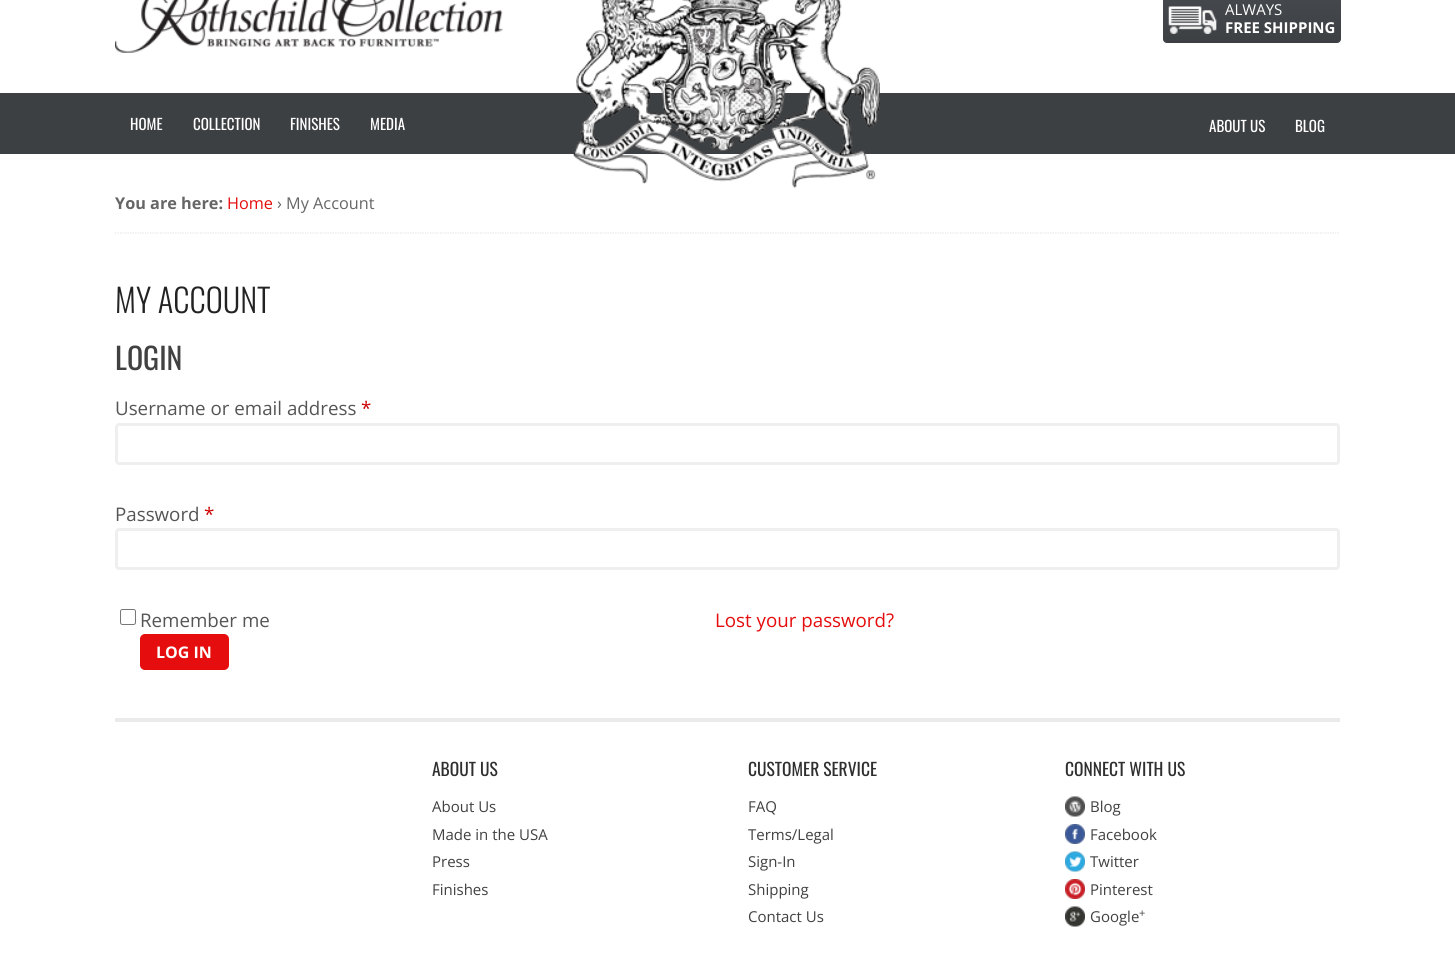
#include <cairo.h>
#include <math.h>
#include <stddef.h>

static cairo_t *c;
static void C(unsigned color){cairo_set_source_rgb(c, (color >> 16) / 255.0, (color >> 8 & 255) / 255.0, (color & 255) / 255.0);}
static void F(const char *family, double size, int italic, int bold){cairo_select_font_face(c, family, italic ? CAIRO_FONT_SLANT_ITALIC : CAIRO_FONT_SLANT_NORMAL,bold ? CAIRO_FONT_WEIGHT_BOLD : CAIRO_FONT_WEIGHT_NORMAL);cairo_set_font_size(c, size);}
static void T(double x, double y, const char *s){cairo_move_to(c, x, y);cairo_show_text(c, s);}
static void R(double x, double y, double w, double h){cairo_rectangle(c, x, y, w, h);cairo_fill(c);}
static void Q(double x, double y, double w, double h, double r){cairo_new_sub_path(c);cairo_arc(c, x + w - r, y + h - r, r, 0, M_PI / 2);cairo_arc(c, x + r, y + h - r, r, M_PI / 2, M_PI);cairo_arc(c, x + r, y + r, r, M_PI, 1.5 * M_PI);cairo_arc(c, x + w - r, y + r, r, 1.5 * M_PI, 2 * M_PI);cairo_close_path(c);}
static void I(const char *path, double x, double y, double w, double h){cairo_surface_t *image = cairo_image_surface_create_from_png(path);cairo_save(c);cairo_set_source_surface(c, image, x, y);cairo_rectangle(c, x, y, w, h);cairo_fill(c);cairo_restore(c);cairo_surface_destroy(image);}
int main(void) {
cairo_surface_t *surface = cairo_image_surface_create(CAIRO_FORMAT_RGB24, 1455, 979);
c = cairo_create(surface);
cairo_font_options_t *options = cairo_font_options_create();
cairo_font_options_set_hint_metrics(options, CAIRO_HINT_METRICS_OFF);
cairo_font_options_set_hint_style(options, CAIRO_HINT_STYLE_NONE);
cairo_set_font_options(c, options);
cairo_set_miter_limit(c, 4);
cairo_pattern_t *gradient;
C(0xffffff);
cairo_paint(c);
I("1.png",115,0,388,53);
C(0x3d4043);
R(0,93,1455,61);
I("2.png",573,0,307,188);
gradient = cairo_pattern_create_linear(1252,-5,1252,43);
cairo_pattern_add_color_stop_rgba(gradient,0,0.271,0.286,0.302,1);
cairo_pattern_add_color_stop_rgba(gradient,1,0.239,0.251,0.263,1);
cairo_set_source(c,gradient);
cairo_pattern_destroy(gradient);
Q(1163,-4,178,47,4);
cairo_fill(c);
I("3.png",1168,6,49,28);
F("Open Sans",15,0,0);
C(0xffffff);
T(1225,15,"ALWAYS");
F("Open Sans",15,0,1);
T(1225,33,"FREE SHIPPING");
F("Oswald",15,0,0);
T(130,130,"HOME");
T(193,130,"COLLECTION");
T(290,130,"FINISHES");
T(370,130,"MEDIA");
T(1209,132,"ABOUT US");
T(1295,132,"BLOG");
cairo_new_path(c);
cairo_move_to(c,115,233);
cairo_line_to(c,1340,233);
C(0xe6e6e6);
cairo_set_line_width(c,1.2);
cairo_set_dash(c,(double[]){1.25,1.25},2,0);
cairo_stroke(c);
F("Open Sans",16.25,0,1);
C(0x666666);
T(115,209,"You are here:");
F("Open Sans",16.25,0,0);
C(0xe50d0d);
T(227,209,"Home");
C(0x666666);
T(277,209,"› My Account");
F("Oswald Light",32.5,0,0);
C(0x222222);
T(115,313,"MY ACCOUNT");
F("Oswald",30,0,0);
C(0x414141);
T(115,370,"LOGIN");
F("Open Sans",18.75,0,0);
C(0x555555);
T(115,415,"Username or email address");
C(0xcc0000);
T(361,415,"*");
Q(116.5,424.5,1222,39,2.5);
C(0xefefef);
cairo_set_line_width(c,3);
cairo_set_dash(c,NULL,0,0);
cairo_stroke(c);
C(0x555555);
T(115,521,"Password");
C(0xcc0000);
T(204,521,"*");
Q(116.5,529.5,1222,39,2.5);
C(0xefefef);
cairo_stroke(c);
Q(120.5,609.5,15,15,2);
C(0x767676);
cairo_set_line_width(c,1);
cairo_stroke(c);
C(0x555555);
T(140,627,"Remember me");
C(0xe50d0d);
Q(140,634,89,36,5);
cairo_fill(c);
F("Open Sans",16,0,1);
C(0xffffff);
T(156,658,"LOG IN");
F("Open Sans",18.75,0,0);
C(0xe50d0d);
T(715,627,"Lost your password?");
C(0xebebeb);
R(115,718,1225,4);
F("Oswald",17.5,0,0);
C(0x2f2f2f);
T(432,776,"ABOUT US");
F("Open Sans",15,0,0);
C(0x414141);
T(432,812,"About Us");
T(432,840,"Made in the USA");
T(432,867,"Press");
T(432,895,"Finishes");
F("Oswald",17.5,0,0);
C(0x2f2f2f);
T(748,776,"CUSTOMER SERVICE");
F("Open Sans",15,0,0);
C(0x414141);
T(748,812,"FAQ");
T(748,840,"Terms/Legal");
T(748,867,"Sign-In");
T(748,895,"Shipping");
T(748,922,"Contact Us");
F("Oswald",17.5,0,0);
C(0x2f2f2f);
T(1065,776,"CONNECT WITH US");
I("4.png",1065,796,20,21);
F("Open Sans",15,0,0);
C(0x414141);
T(1090,812,"Blog");
I("5.png",1065,824,20,20);
T(1090,840,"Facebook");
I("6.png",1065,851,20,21);
T(1090,867,"Twitter");
I("7.png",1065,879,20,20);
T(1090,895,"Pinterest");
I("8.png",1065,906,20,21);
T(1090,922,"Google");
F("Open Sans",11,0,0);
T(1139,917,"+");
cairo_surface_write_to_png(surface, "o.png");
cairo_font_options_destroy(options);
cairo_destroy(c);
cairo_surface_destroy(surface);
return 0;
}
